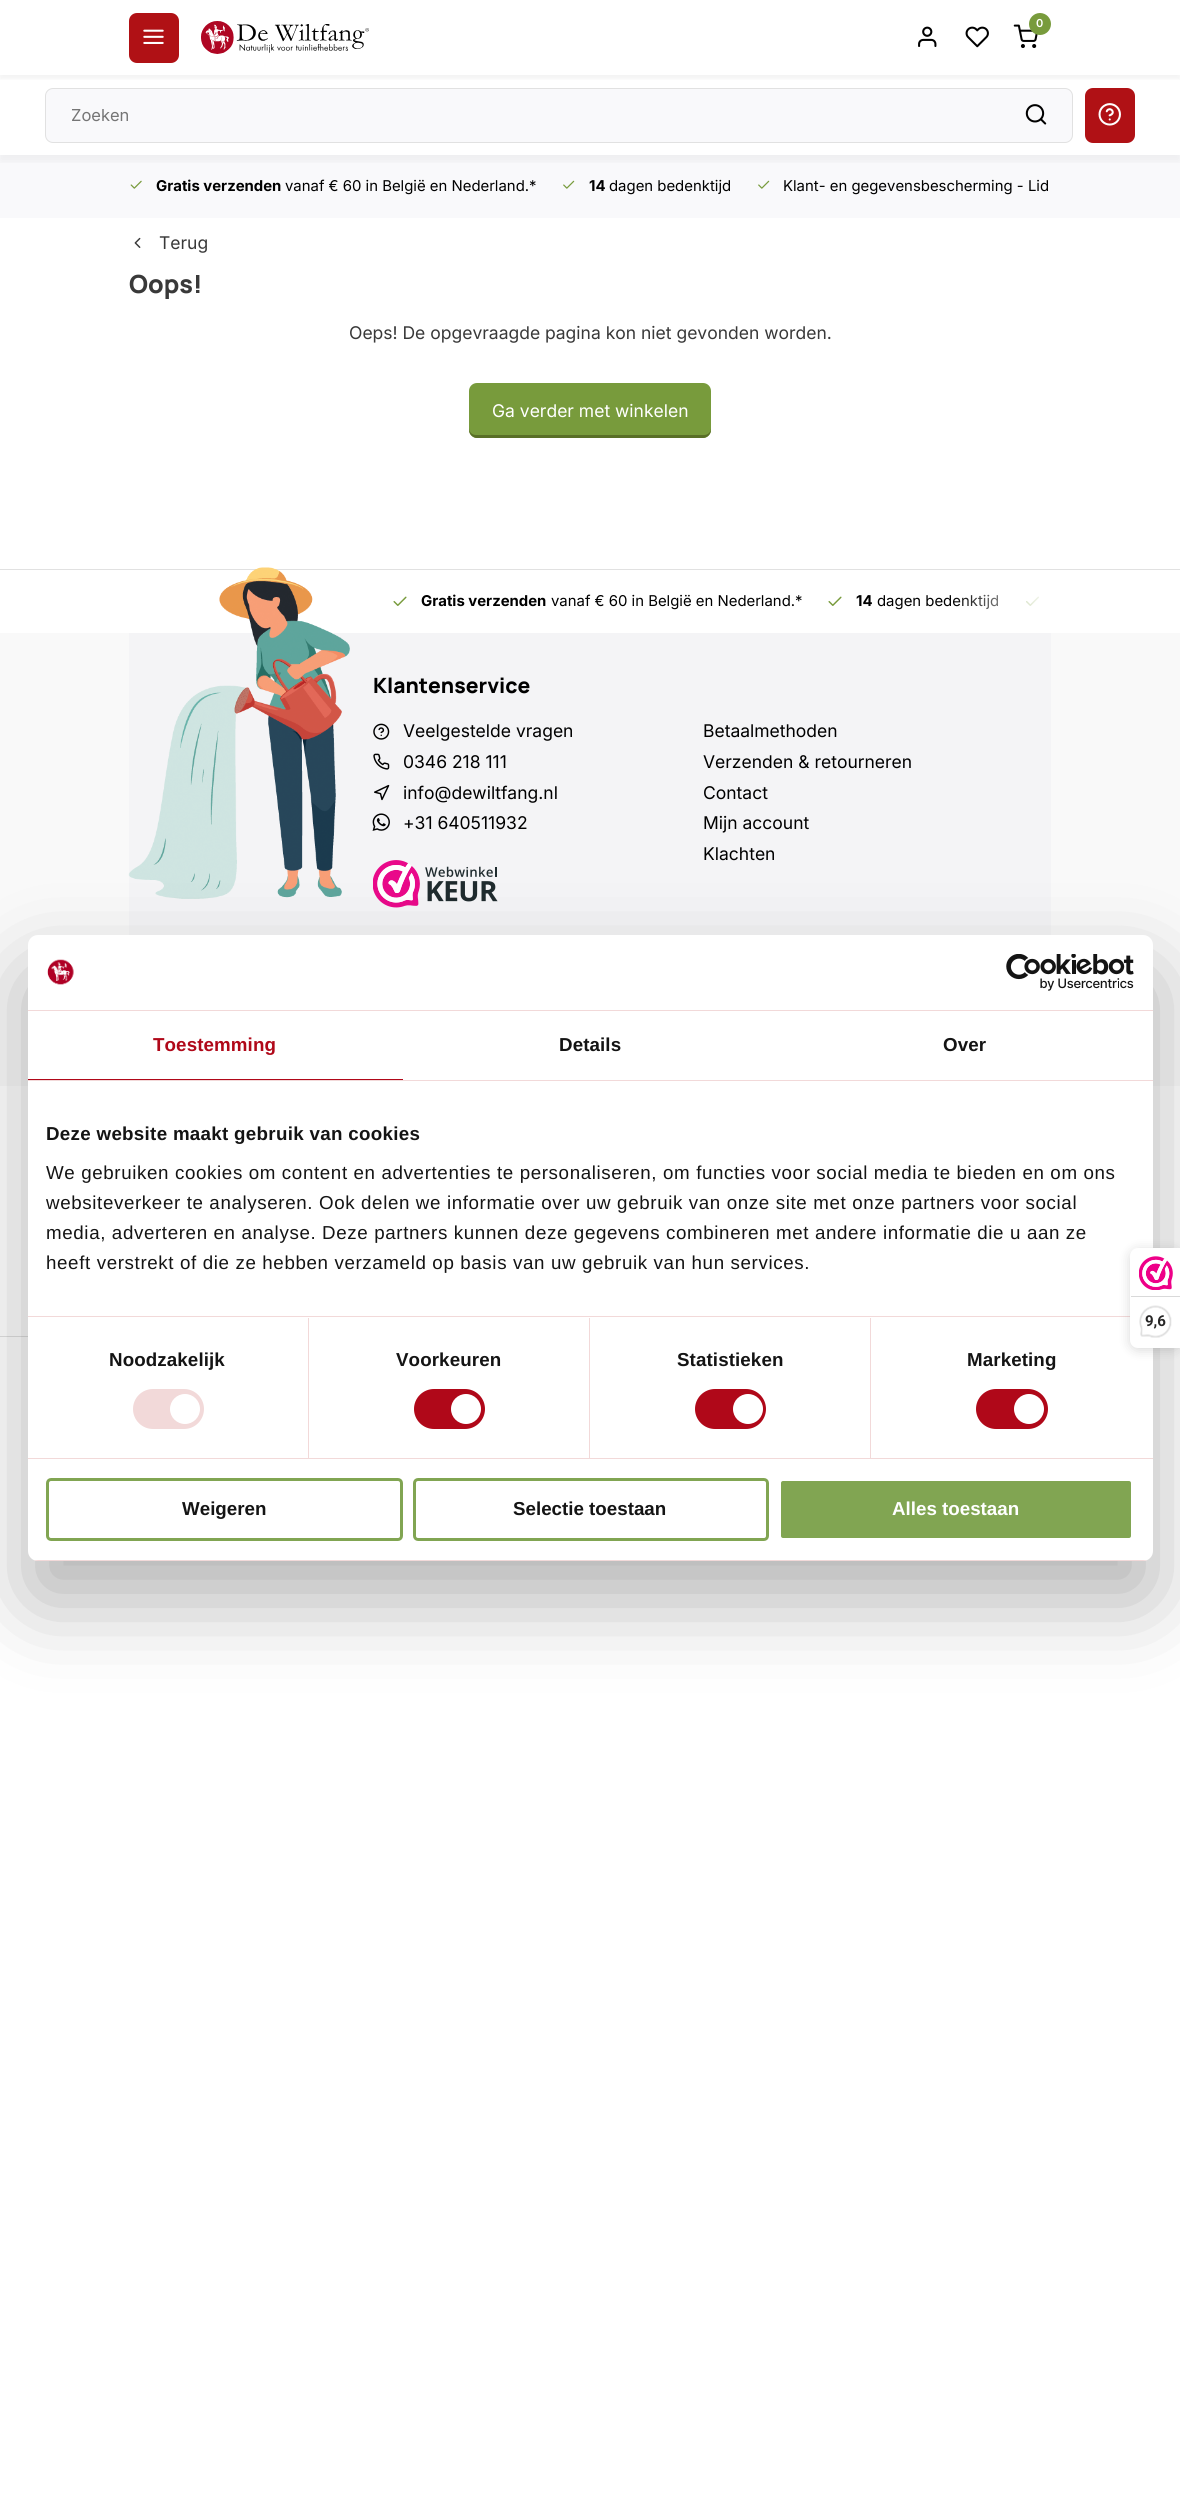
#include <cairo.h>
#include <math.h>
#include <stddef.h>

static cairo_t *c;
static void C(unsigned color){cairo_set_source_rgb(c, (color >> 16) / 255.0, (color >> 8 & 255) / 255.0, (color & 255) / 255.0);}
static void F(const char *family, double size, int italic, int bold){cairo_select_font_face(c, family, italic ? CAIRO_FONT_SLANT_ITALIC : CAIRO_FONT_SLANT_NORMAL,bold ? CAIRO_FONT_WEIGHT_BOLD : CAIRO_FONT_WEIGHT_NORMAL);cairo_set_font_size(c, size);}
static void T(double x, double y, const char *s){cairo_move_to(c, x, y);cairo_show_text(c, s);}
static void L(double x, double y, const char *s, double letter, double word){cairo_move_to(c, x, y);while (*s) {char ch[5] = {0};int n = 0;do ch[n++] = *s++; while ((*s & 0xC0) == 0x80);cairo_show_text(c, ch);cairo_rel_move_to(c, letter + word * (*ch == ' '), 0);}}
static void R(double x, double y, double w, double h){cairo_rectangle(c, x, y, w, h);cairo_fill(c);}
static void Q(double x, double y, double w, double h, double r){cairo_new_sub_path(c);cairo_arc(c, x + w - r, y + h - r, r, 0, M_PI / 2);cairo_arc(c, x + r, y + h - r, r, M_PI / 2, M_PI);cairo_arc(c, x + r, y + r, r, M_PI, 1.5 * M_PI);cairo_arc(c, x + w - r, y + r, r, 1.5 * M_PI, 2 * M_PI);cairo_close_path(c);}
static void S(double x, double y, double w, double h, double r, double blur, double alpha){cairo_push_group_with_content(c, CAIRO_CONTENT_ALPHA);cairo_set_operator(c, CAIRO_OPERATOR_SOURCE);for (int i = 15; i >= -15 && fmin(w, h) + blur * i / 3 > 0; i -= 2) {double e = blur * i / 6;cairo_set_source_rgba(c, 0, 0, 0, alpha * erfc((i - 1) / 8.5) / 2);Q(x - e, y - e, w + 2 * e, h + 2 * e, fmax(0, fmin(r + e + blur * .6, fmin(w, h) / 2 + e)));cairo_fill(c);}cairo_pattern_t *soft = cairo_pop_group(c);cairo_mask(c, soft);cairo_pattern_destroy(soft);}
static void I(const char *path, double x, double y, double w, double h){cairo_surface_t *image = cairo_image_surface_create_from_png(path);cairo_save(c);cairo_set_source_surface(c, image, x, y);cairo_rectangle(c, x, y, w, h);cairo_fill(c);cairo_restore(c);cairo_surface_destroy(image);}
int main(void) {
cairo_surface_t *surface = cairo_image_surface_create(CAIRO_FORMAT_RGB24, 1180, 2495);
c = cairo_create(surface);
cairo_font_options_t *options = cairo_font_options_create();
cairo_font_options_set_hint_metrics(options, CAIRO_HINT_METRICS_OFF);
cairo_font_options_set_hint_style(options, CAIRO_HINT_STYLE_NONE);
cairo_set_font_options(c, options);
cairo_set_miter_limit(c, 4);
cairo_pattern_t *gradient;
C(0xffffff);
cairo_paint(c);
C(0xf9f9fb);
R(0,155,1180,63);
cairo_save(c);
cairo_rectangle(c,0,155,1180,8);
cairo_clip(c);
C(0x000000);
S(0,6,1180,155,0,6,.05);
cairo_restore(c);
cairo_save(c);
cairo_rectangle(c,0,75,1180,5);
cairo_clip(c);
C(0x000000);
S(0,4,1180,75,0,2.5,.05);
cairo_restore(c);
C(0xb01115);
Q(129,13,50,50,8);
cairo_fill(c);
I("1.png",143,29,21,15);
I("2.png",201,21,168,33);
I("3.png",1013,24,25,24);
C(0x789b3c);
cairo_arc(c,1040,24,11,0,2 * M_PI);
cairo_fill(c);
F("Inter SemiBold",11,0,0);
C(0xffffff);
T(1036,27,"0");
I("4.png",918,26,19,21);
I("5.png",965,26,24,22);
C(0xf9f9fb);
Q(45.5,88.5,1027,54,7.5);
cairo_fill_preserve(c);
C(0xe1e1e1);
cairo_set_line_width(c,1);
cairo_stroke(c);
F("Inter",16.5,0,0);
C(0x757575);
T(71,121,"Zoeken");
I("6.png",1025,104,22,21);
C(0xb01115);
Q(1085,88,50,55,8);
cairo_fill(c);
I("7.png",1098,103,23,23);
I("8.png",130,180,12,9);
F("Inter",14.9,0,1);
C(0x000000);
T(156,191,"Gratis verzenden");
F("Inter",14.9,0,0);
T(285,191,"vanaf € 60 in België en Nederland.*");
I("9.png",563,180,12,9);
F("Inter",14.9,0,1);
T(589,191,"14");
F("Inter",14.9,0,0);
T(609,191,"dagen bedenktijd");
I("9.png",758,180,12,9);
T(783,191,"Klant- en gegevensbescherming - Lid");
I("10.png",134,237,7,11);
F("Inter",17.5,0,0);
C(0x393939);
T(159,249,"Terug");
F("Manrope ExtraLight",25,0,0);
T(129,293,"Oops!");
F("Inter",17.5,0,0);
T(349,339,"Oeps! De opgevraagde pagina kon niet gevonden worden.");
C(0x789b3c);
Q(469,383,242,55,8);
cairo_fill(c);
C(0x596f27);
cairo_new_path(c);
cairo_move_to(c,469,428);
cairo_line_to(c,469,430);
cairo_curve_to(c,469,434,473,438,477,438);
cairo_line_to(c,703,438);
cairo_curve_to(c,707,438,711,434,711,430);
cairo_line_to(c,711,428);
cairo_curve_to(c,711,432,708,435,704,435);
cairo_line_to(c,476,435);
cairo_curve_to(c,472,435,469,432,469,428);
cairo_close_path(c);
cairo_fill(c);
C(0xffffff);
T(492,417,"Ga verder met winkelen");
C(0xe1e1e1);
R(0,569,1180,1);
I("11.png",393,596,14,10);
F("Inter",14.9,0,1);
C(0x000000);
T(421,606,"Gratis verzenden");
F("Inter",14.9,0,0);
T(551,606,"vanaf € 60 in België en Nederland.*");
I("11.png",828,596,14,10);
F("Inter",14.9,0,1);
T(856,606,"14");
F("Inter",14.9,0,0);
T(877,606,"dagen bedenktijd");
I("12.png",1026,596,13,10);
gradient = cairo_pattern_create_linear(953,601,1051,601);
cairo_pattern_add_color_stop_rgba(gradient,0,1,1,1,0);
cairo_pattern_add_color_stop_rgba(gradient,1,1,1,1,1);
cairo_set_source(c,gradient);
cairo_pattern_destroy(gradient);
R(955,594,84,15);
C(0xf9f9f9);
R(0,633,1180,453);
C(0xf4f4f6);
R(129,633,922,302);
I("13.png",128,567,222,332);
F("Manrope ExtraLight",21,0,0);
C(0x000000);
T(373,693,"Klantenservice");
I("14.png",373,723,17,17);
F("Inter",17.5,0,0);
T(403,737,"Veelgestelde vragen");
I("15.png",373,753,17,17);
T(403,768,"0346 218 111");
I("16.png",374,784,16,17);
T(403,799,"info@dewiltfang.nl");
I("17.png",372,813,18,18);
T(403,829,"+31 640511932");
I("18.png",373,860,125,48);
T(703,737,"Betaalmethoden");
T(703,768,"Verzenden & retourneren");
T(703,799,"Contact");
T(703,829,"Mijn account");
T(703,860,"Klachten");
C(0xe1e1e1);
R(0,1336,28,1);
C(0x000000);
S(28,975,1125,626,10,42.5,.3);
C(0xffffff);
Q(28,935,1125,626,10);
cairo_fill(c);
C(0xf2d9d9);
R(28,1010,1125,1);
I("19.png",47,959,27,26);
I("20.png",1006,954,128,37);
R(28,1080,1125,1);
C(0xb00819);
R(28,1079,375,1);
F("Liberation Sans",18.75,0,1);
L(153,1051,"Toestemming",.1,0);
C(0x141414);
L(559,1051,"Details",.1,0);
L(943,1051,"Over",.1,0);
C(0xf2d9d9);
R(28,1316,1102,1);
C(0x141414);
L(46,1140,"Deze website maakt gebruik van cookies",.3,0);
F("Liberation Sans",18.75,0,0);
L(46,1179,"We gebruiken cookies om content en advertenties te personaliseren, om functies voor social media te bieden en om ons",.62,0);
L(46,1209,"websiteverkeer te analyseren. Ook delen we informatie over uw gebruik van onze site met onze partners voor social",.62,0);
L(46,1239,"media, adverteren en analyse. Deze partners kunnen deze gegevens combineren met andere informatie die u aan ze",.62,0);
L(46,1269,"heeft verstrekt of die ze hebben verzameld op basis van uw gebruik van hun services.",.62,0);
C(0xf2d9d9);
R(28,1458,1125,1);
R(308,1318,1,140);
F("Liberation Sans",18.75,0,1);
C(0x141414);
L(109,1366,"Noodzakelijk",.1,0);
C(0xf2d9d9);
Q(133,1389,71,40,20);
cairo_fill(c);
C(0xffffff);
cairo_arc(c,185,1409,15,0,2 * M_PI);
cairo_fill(c);
C(0xf2d9d9);
R(589,1318,1,140);
C(0x141414);
L(396,1366,"Voorkeuren",.1,0);
C(0xb00819);
Q(414,1389,71,40,20);
cairo_fill(c);
C(0xffffff);
cairo_arc(c,466,1409,15,0,2 * M_PI);
cairo_fill(c);
C(0xf2d9d9);
R(870,1318,1,140);
C(0x141414);
L(677,1366,"Statistieken",.1,0);
C(0xb00819);
Q(695,1389,71,40,20);
cairo_fill(c);
C(0xffffff);
cairo_arc(c,748,1409,15,0,2 * M_PI);
cairo_fill(c);
C(0x141414);
L(967,1366,"Marketing",.1,0);
C(0xb00819);
Q(976,1389,72,40,20);
cairo_fill(c);
C(0xffffff);
cairo_arc(c,1029,1409,15,0,2 * M_PI);
cairo_fill(c);
cairo_save(c);
Q(28,935,1125,626,10);
cairo_clip(c);
C(0xf2d9d9);
R(28,1560,1125,1);
cairo_restore(c);
Q(47.5,1479.5,354,60,3.5);
C(0x81a552);
cairo_set_line_width(c,3);
cairo_stroke(c);
C(0x141414);
T(182,1515,"Weigeren");
Q(414.5,1479.5,353,60,3.5);
C(0x81a552);
cairo_stroke(c);
C(0x141414);
T(513,1515,"Selectie toestaan");
C(0x81a552);
Q(779.5,1479.5,353,60,3.5);
cairo_fill_preserve(c);
C(0xffffff);
cairo_stroke(c);
T(892,1515,"Alles toestaan");
C(0x000000);
S(1130,1250,50,100,8,6,.15);
C(0xffffff);
cairo_new_path(c);
cairo_move_to(c,1138,1248);
cairo_line_to(c,1180,1248);
cairo_line_to(c,1180,1348);
cairo_line_to(c,1138,1348);
cairo_curve_to(c,1133.5,1348,1130,1344.5,1130,1340);
cairo_line_to(c,1130,1256);
cairo_curve_to(c,1130,1251.5,1133.5,1248,1138,1248);
cairo_close_path(c);
cairo_fill(c);
I("21.png",1139,1256,34,34);
C(0xd9d9d9);
R(1131,1296,49,1);
I("22.png",1139,1305,33,33);
F("Roboto",15,0,1);
C(0x272626);
T(1145,1326,"9,6");
cairo_surface_write_to_png(surface, "o.png");
cairo_font_options_destroy(options);
cairo_destroy(c);
cairo_surface_destroy(surface);
return 0;
}
